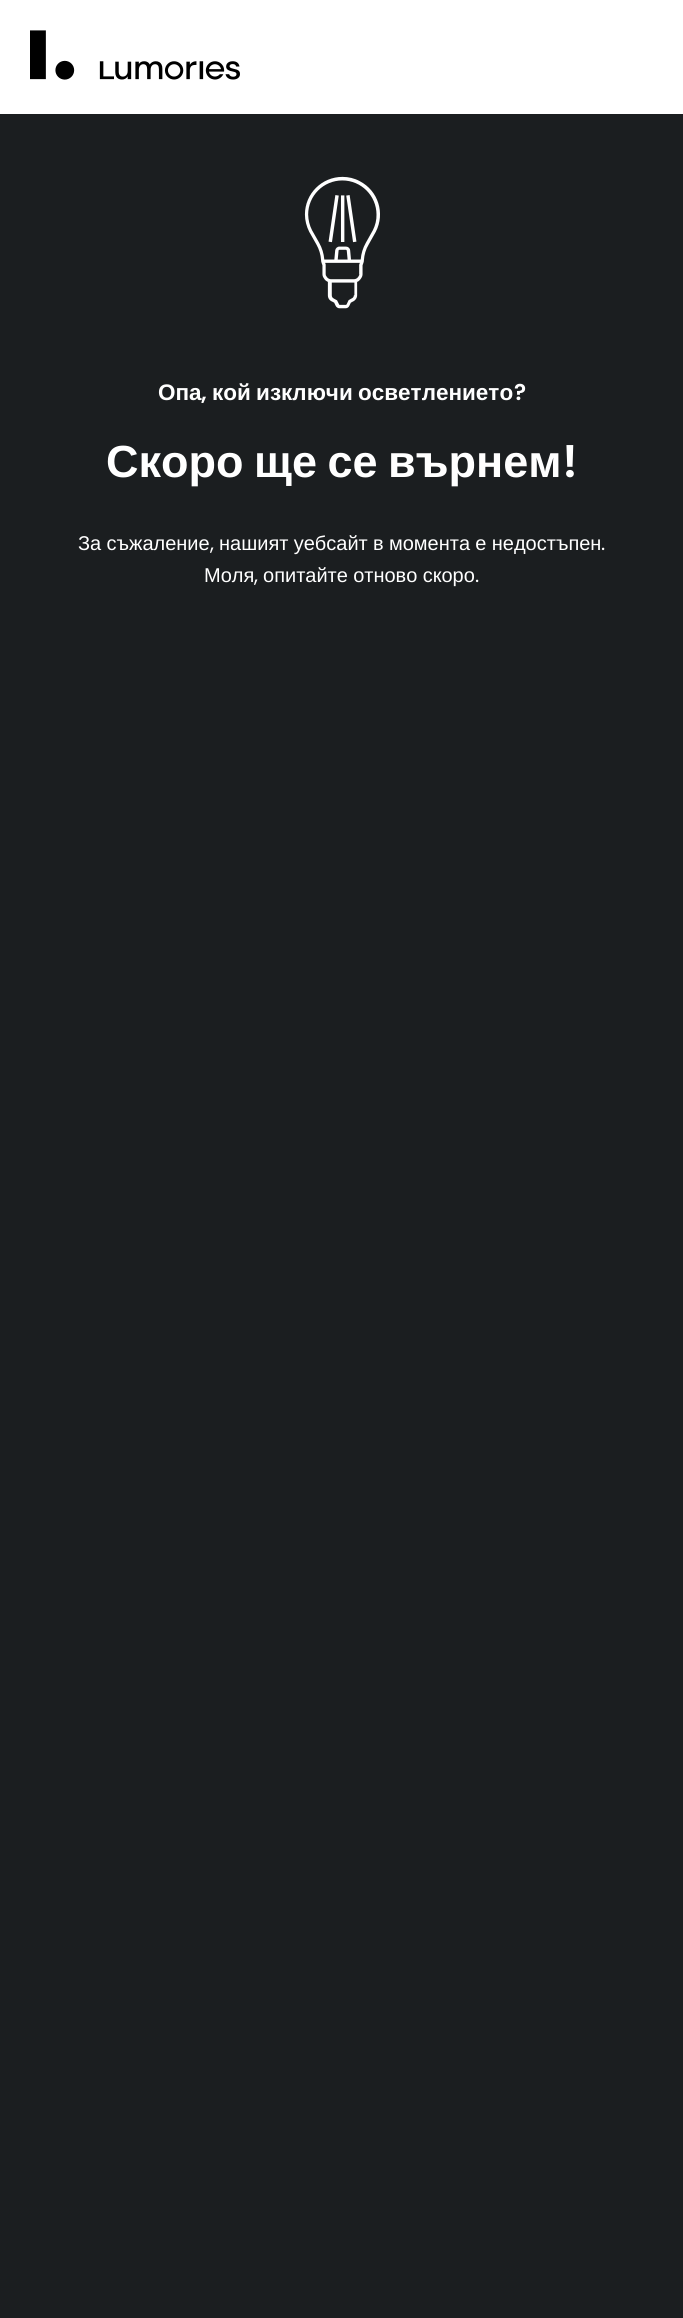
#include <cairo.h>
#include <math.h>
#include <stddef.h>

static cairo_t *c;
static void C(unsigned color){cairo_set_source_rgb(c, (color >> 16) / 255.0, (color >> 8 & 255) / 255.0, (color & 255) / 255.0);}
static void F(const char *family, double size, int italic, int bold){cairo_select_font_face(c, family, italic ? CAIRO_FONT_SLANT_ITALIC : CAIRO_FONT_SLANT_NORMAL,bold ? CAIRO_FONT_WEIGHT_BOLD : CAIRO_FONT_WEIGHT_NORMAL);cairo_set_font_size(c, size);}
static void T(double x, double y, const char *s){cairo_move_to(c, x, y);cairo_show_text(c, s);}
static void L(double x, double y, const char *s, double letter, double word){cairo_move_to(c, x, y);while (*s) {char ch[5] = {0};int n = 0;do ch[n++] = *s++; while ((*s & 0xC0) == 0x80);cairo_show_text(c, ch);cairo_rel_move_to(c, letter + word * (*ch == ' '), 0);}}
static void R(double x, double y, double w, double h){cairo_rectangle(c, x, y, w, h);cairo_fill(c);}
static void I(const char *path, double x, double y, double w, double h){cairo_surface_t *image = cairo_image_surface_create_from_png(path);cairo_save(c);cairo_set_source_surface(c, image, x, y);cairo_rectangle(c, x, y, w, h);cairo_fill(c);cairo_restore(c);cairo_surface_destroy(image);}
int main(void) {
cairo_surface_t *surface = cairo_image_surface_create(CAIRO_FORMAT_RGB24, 683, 2318);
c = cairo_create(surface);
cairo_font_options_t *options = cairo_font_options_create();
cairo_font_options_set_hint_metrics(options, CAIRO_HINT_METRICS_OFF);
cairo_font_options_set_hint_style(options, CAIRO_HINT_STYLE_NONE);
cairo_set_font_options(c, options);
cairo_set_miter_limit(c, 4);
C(0x1b1e20);
cairo_paint(c);
C(0xffffff);
R(0,0,683,114);
I("1.png",30,30,210,50);
I("2.png",304,176,76,133);
F("Liberation Sans",22.5,0,1);
T(158,400,"Опа");
F("Poppins SemiBold",22.5,0,0);
T(201,400,",");
F("Liberation Sans",22.5,0,1);
L(212,400,"кой изключи осветлението",0,-1);
F("Poppins SemiBold",22.5,0,0);
T(514,400,"?");
F("Liberation Sans",45,0,1);
L(106,477,"Скоро ще се върнем",0,-2);
F("Poppins SemiBold",45,0,0);
T(562,477,"!");
F("Liberation Sans",20,0,0);
L(78,550,"За съжаление",0,-.25);
F("Poppins",20,0,0);
T(210,550,",");
F("Liberation Sans",20,0,0);
L(219,550,"нашият уебсайт в момента е недостъпен",0,-.25);
F("Poppins",20,0,0);
T(601,550,".");
F("Liberation Sans",20,0,0);
T(204,582,"Моля");
F("Poppins",20,0,0);
T(254,582,",");
F("Liberation Sans",20,0,0);
L(263,582,"опитайте отново скоро",0,-.25);
F("Poppins",20,0,0);
T(475,582,".");
cairo_surface_write_to_png(surface, "o.png");
cairo_font_options_destroy(options);
cairo_destroy(c);
cairo_surface_destroy(surface);
return 0;
}
